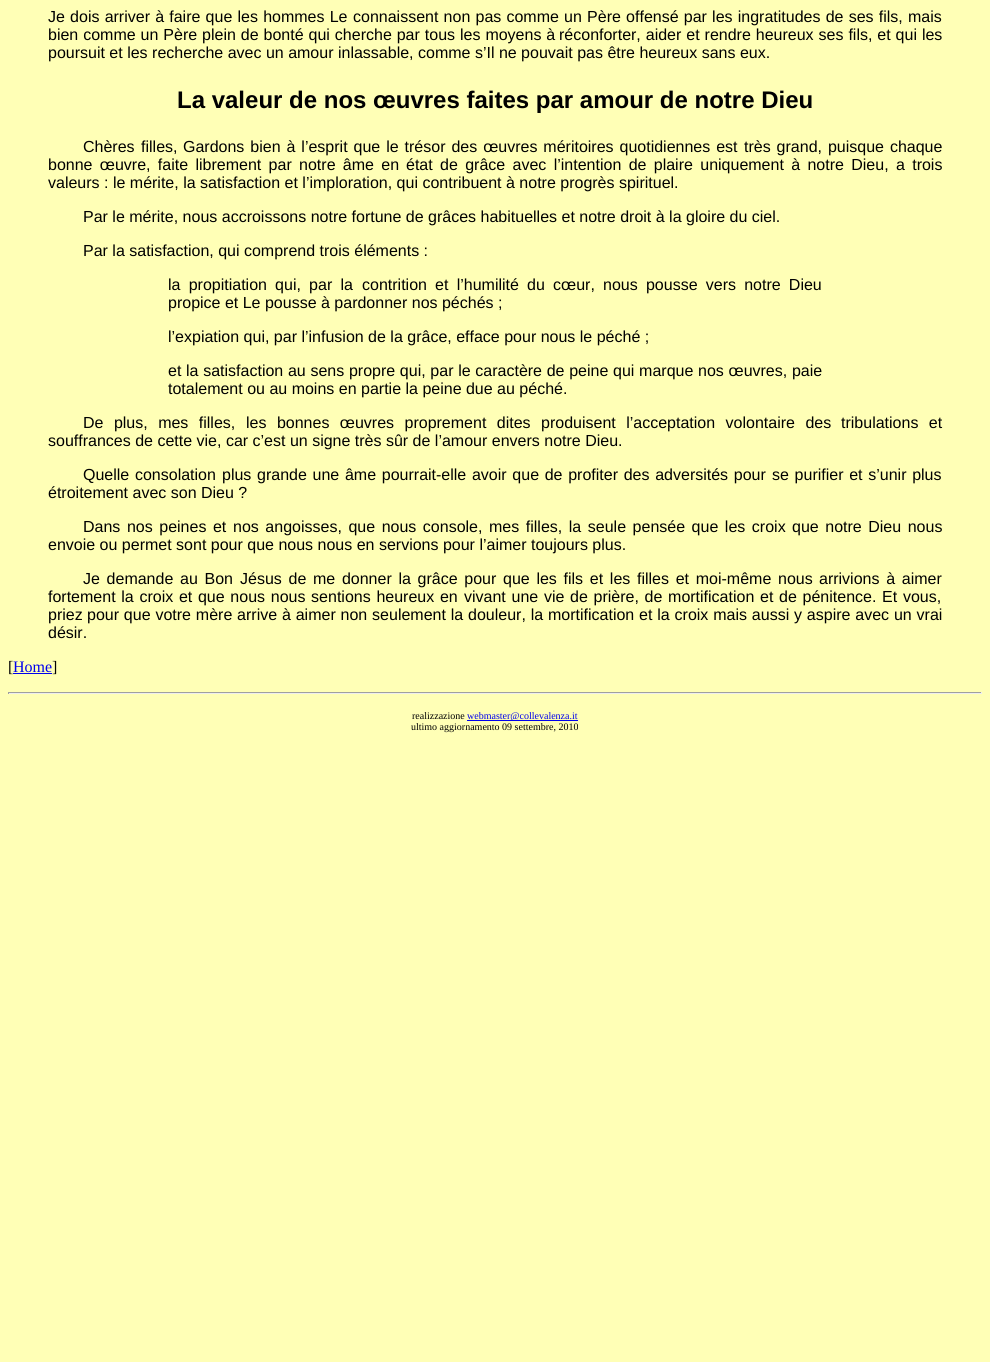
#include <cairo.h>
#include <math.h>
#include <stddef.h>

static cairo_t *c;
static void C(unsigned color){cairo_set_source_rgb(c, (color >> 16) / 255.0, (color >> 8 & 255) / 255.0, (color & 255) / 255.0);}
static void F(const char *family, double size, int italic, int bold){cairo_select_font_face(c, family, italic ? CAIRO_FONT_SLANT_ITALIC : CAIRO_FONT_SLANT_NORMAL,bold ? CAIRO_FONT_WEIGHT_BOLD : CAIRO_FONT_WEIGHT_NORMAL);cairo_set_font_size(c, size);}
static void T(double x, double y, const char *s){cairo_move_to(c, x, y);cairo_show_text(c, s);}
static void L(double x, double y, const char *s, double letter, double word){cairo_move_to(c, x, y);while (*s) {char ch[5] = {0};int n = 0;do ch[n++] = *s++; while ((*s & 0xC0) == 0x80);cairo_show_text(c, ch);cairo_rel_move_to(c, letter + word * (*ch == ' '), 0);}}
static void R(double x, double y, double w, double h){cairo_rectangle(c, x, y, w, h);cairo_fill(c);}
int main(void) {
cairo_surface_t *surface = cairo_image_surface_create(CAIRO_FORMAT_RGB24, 990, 1362);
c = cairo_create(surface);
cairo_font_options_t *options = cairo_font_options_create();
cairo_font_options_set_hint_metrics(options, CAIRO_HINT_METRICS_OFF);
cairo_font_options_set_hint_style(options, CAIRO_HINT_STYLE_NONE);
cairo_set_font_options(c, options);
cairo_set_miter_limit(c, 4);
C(0xffffb6);
cairo_paint(c);
F("Liberation Sans",16,0,0);
C(0x000000);
L(48,22,"Je dois arriver à faire que les hommes Le",0,.75);
L(353,22,"connaissent non pas comme un Père offensé par les ingratitudes de ses fils,",0,.75);
T(908,22,"mais");
L(48,40,"bien comme un Père plein de bonté qui cherche par tous les moyens à",0,.5);
L(559,40,"réconforter, aider et rendre heureux ses fils, et qui les",0,.5);
T(48,58,"poursuit et les recherche avec un amour inlassable, comme s’Il ne pouvait pas être heureux sans eux.");
F("Liberation Sans",24,0,1);
T(177,108,"La valeur de nos œuvres faites par amour de notre Dieu");
F("Liberation Sans",16,0,0);
L(83,152,"Chères filles,",0,2);
L(183,152,"Gardons bien à l’esprit que le trésor des œuvres méritoires quotidiennes est",0,1.5);
L(744,152,"très grand, puisque chaque",0,1.5);
L(48,170,"bonne œuvre, faite librement par notre âme en",0,2.9);
L(406,170,"état de grâce avec l’intention de plaire uniquement à notre Dieu, a trois",0,2.9);
T(48,188,"valeurs : le mérite, la satisfaction et l’imploration, qui contribuent à notre progrès spirituel.");
T(83,222,"Par le mérite, nous accroissons notre fortune de grâces habituelles et notre droit à la gloire du ciel.");
T(83,256,"Par la satisfaction, qui comprend trois éléments :");
L(168,290,"la propitiation qui, par la",0,3.75);
L(362,290,"contrition et l’humilité du cœur, nous pousse vers notre Dieu",0,3.75);
T(168,308,"propice et Le pousse à pardonner nos péchés ;");
T(168,342,"l’expiation qui, par l’infusion de la grâce, efface pour nous le péché ;");
L(168,376,"et la satisfaction au sens propre qui, par le caractère de peine qui marque nos œuvres, paie",0,.25);
T(168,394,"totalement ou au moins en partie la peine due au péché.");
L(83,428,"De plus, mes filles,",0,6);
L(246,428,"les bonnes œuvres proprement dites produisent l’acceptation volontaire des",0,6);
L(841,428,"tribulations et",0,6);
T(48,446,"souffrances de cette vie, car c’est un signe très sûr de l’amour envers notre Dieu.");
L(83,480,"Quelle consolation",0,1.25);
L(222,480,"plus grande une âme pourrait-elle avoir que de profiter des adversités pour",0,1.25);
L(772,480,"se purifier et s’unir plus",0,1.25);
T(48,498,"étroitement avec son Dieu ?");
L(83,532,"Dans nos peines et",0,2.1);
L(233,532,"nos angoisses, que nous console, mes filles, la seule pensée que les croix",0,2.1);
L(792,532,"que notre Dieu nous",0,2.1);
T(48,550,"envoie ou permet sont pour que nous nous en servions pour l’aimer toujours plus.");
L(83,584,"Je demande au Bon",0,2.25);
L(240,584,"Jésus de me donner la grâce pour que les fils et les filles et moi-même nous",0,2.25);
L(819,584,"arrivions à aimer",0,2.25);
L(48,602,"fortement la croix et que nous nous sentions heureux en",0,1.25);
L(464,602,"vivant une vie de prière, de mortification et de pénitence. Et vous,",0,1.25);
T(48,620,"priez");
L(87,620,"pour que votre mère arrive à aimer non seulement la douleur, la",0,.4);
L(548,620,"mortification et la croix mais aussi y aspire avec un vrai",0,.4);
T(48,638,"désir.");
F("Liberation Serif",16,0,0);
T(8,672,"[");
C(0x0000ee);
R(13,673,39,1);
T(13,672,"Home");
C(0x000000);
T(52,672,"]");
C(0x9f9f9f);
R(8,692,974,1);
C(0xeeeeee);
R(981,692,1,2);
R(8,693,974,1);
C(0x9f9f9f);
R(8,692,1,2);
F("Liberation Serif",10,0,0);
C(0x000000);
T(412,719,"realizzazione");
C(0x0000ee);
R(467,720,111,1);
T(467,719,"webmaster@collevalenza.it");
C(0x000000);
T(411,730,"ultimo aggiornamento 09 settembre, 2010");
cairo_surface_write_to_png(surface, "o.png");
cairo_font_options_destroy(options);
cairo_destroy(c);
cairo_surface_destroy(surface);
return 0;
}
